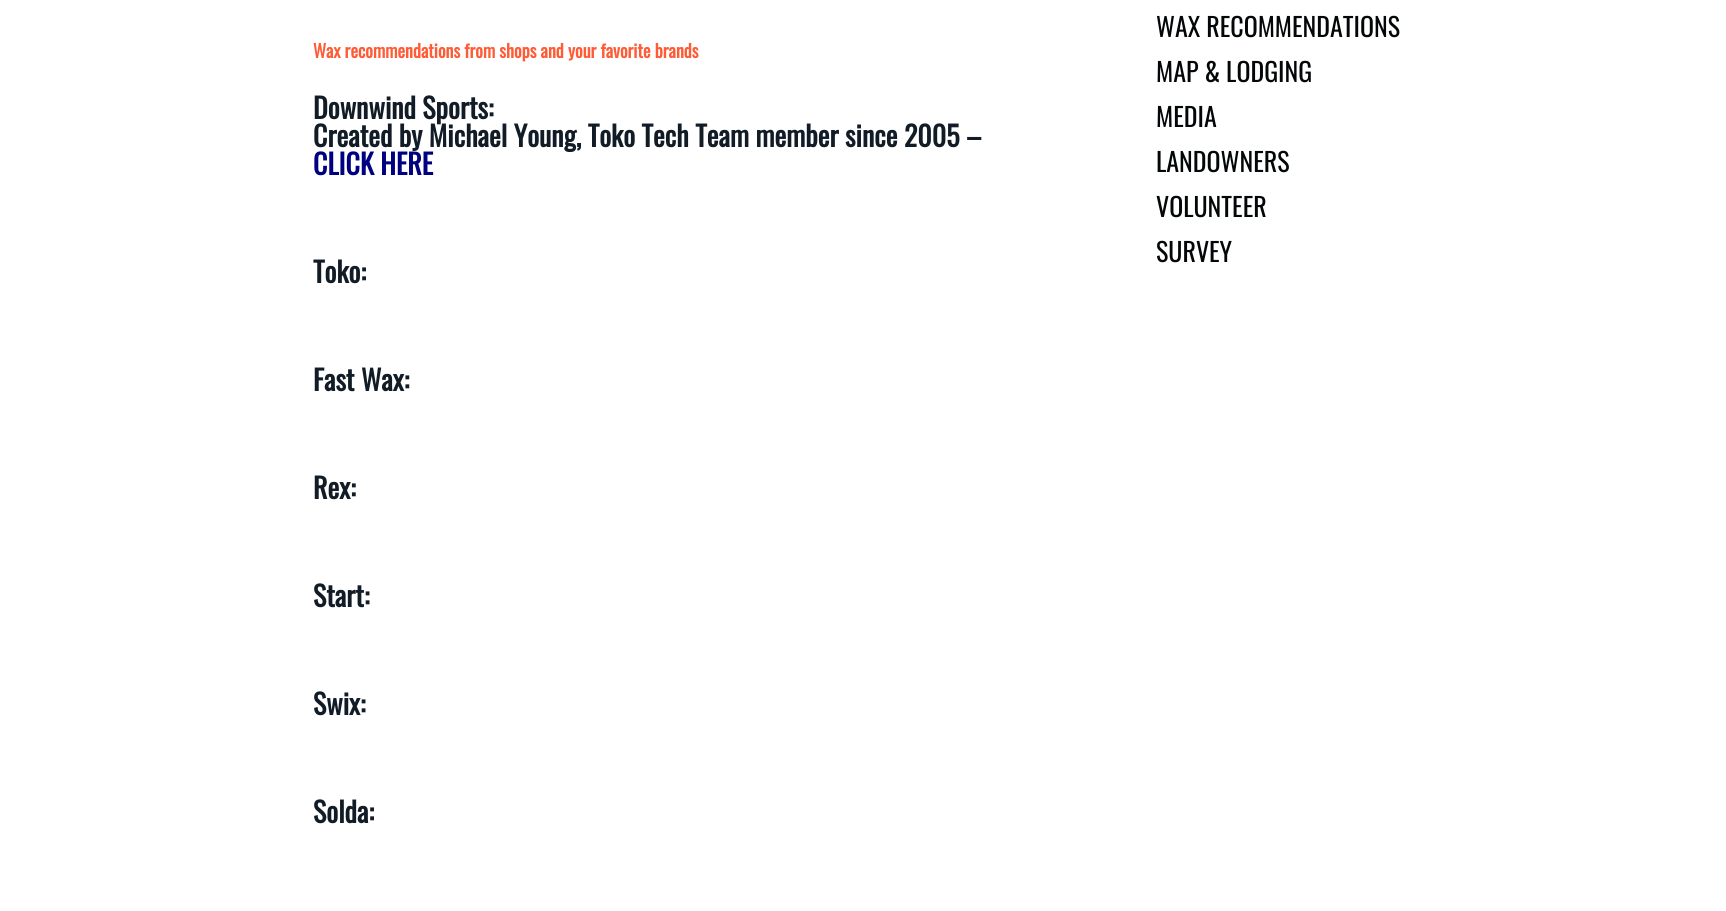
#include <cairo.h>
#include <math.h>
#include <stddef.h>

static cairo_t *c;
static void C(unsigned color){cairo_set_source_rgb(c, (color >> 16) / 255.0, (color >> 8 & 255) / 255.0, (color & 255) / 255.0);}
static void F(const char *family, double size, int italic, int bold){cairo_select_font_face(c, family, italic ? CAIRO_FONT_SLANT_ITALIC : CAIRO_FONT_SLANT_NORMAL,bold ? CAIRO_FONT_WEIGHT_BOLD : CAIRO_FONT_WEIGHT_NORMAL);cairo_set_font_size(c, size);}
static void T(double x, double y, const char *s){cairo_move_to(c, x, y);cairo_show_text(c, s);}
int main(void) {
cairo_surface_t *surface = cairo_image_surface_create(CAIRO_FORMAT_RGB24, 1726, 911);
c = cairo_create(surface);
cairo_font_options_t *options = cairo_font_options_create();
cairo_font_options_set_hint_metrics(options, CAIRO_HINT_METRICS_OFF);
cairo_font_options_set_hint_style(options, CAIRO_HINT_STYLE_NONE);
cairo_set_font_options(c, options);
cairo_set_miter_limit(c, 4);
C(0xffffff);
cairo_paint(c);
F("Oswald",18,0,1);
C(0xff5b36);
T(313,58,"Wax recommendations from shops and your favorite brands");
F("Oswald",28,0,1);
C(0x121c26);
T(313,119,"Downwind Sports:");
T(313,147,"Created by Michael Young, Toko Tech Team member since 2005 –");
C(0x000080);
T(313,175,"CLICK HERE");
C(0x121c26);
T(313,283,"Toko:");
T(313,391,"Fast Wax:");
T(313,499,"Rex:");
T(313,607,"Start:");
T(313,715,"Swix:");
T(313,823,"Solda:");
F("Oswald",26,0,0);
C(0x030708);
T(1156,37,"WAX RECOMMENDATIONS");
T(1156,82,"MAP & LODGING");
T(1156,127,"MEDIA");
T(1156,172,"LANDOWNERS");
T(1156,217,"VOLUNTEER");
T(1156,262,"SURVEY");
cairo_surface_write_to_png(surface, "o.png");
cairo_font_options_destroy(options);
cairo_destroy(c);
cairo_surface_destroy(surface);
return 0;
}
